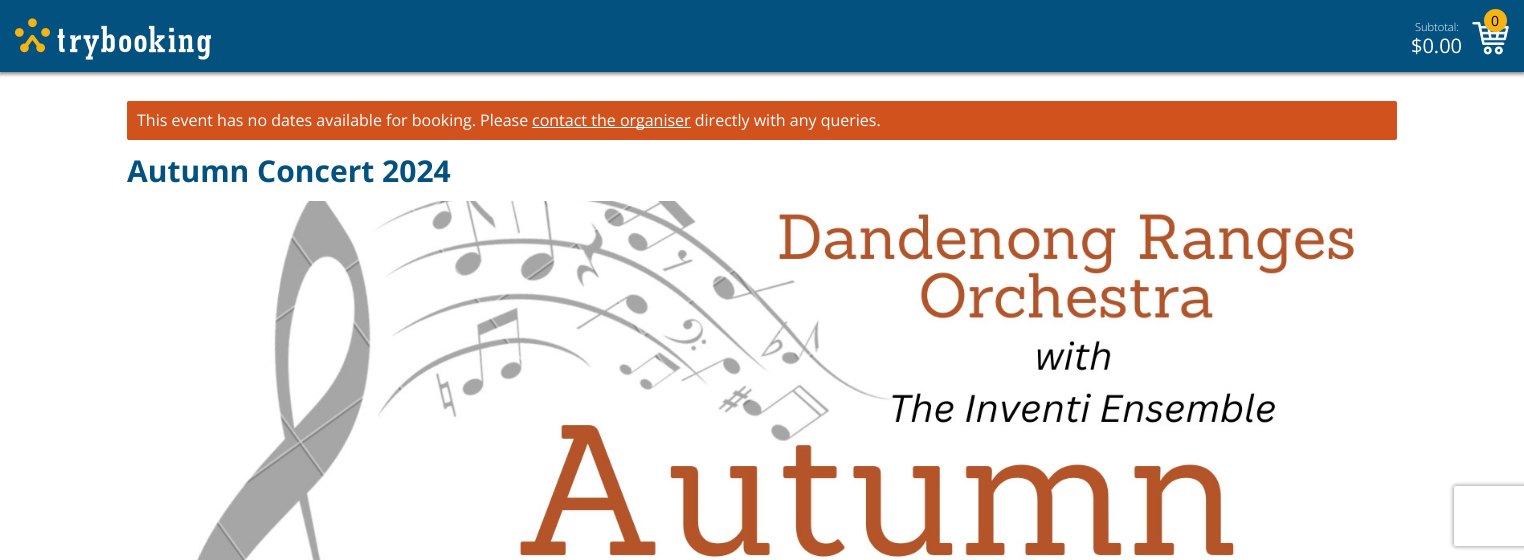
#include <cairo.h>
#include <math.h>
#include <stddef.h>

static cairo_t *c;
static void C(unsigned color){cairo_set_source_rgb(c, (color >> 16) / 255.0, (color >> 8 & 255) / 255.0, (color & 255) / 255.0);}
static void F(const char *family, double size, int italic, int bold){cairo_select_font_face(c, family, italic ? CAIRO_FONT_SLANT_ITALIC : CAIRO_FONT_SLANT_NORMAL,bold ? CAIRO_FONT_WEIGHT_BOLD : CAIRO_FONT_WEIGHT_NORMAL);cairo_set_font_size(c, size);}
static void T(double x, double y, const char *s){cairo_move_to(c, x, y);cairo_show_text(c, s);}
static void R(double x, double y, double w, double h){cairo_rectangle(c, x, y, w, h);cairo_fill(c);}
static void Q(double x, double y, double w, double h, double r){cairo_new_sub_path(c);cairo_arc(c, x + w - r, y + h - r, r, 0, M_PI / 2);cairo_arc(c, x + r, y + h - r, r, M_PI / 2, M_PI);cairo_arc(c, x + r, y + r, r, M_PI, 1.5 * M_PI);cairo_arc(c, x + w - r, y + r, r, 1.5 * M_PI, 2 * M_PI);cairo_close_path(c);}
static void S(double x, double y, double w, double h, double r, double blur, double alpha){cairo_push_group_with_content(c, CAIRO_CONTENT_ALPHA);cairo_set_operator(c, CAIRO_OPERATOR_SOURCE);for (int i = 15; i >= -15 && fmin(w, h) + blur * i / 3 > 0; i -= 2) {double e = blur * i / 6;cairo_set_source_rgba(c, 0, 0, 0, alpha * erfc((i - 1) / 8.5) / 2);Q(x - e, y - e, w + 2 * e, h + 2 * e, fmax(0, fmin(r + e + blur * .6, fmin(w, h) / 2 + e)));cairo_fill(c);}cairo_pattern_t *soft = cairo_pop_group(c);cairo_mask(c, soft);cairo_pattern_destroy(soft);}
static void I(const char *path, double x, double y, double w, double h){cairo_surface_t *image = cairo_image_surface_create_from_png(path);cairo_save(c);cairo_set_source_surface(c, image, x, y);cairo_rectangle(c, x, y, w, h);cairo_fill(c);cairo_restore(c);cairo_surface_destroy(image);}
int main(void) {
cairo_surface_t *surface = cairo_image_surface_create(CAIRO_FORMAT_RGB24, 1524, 560);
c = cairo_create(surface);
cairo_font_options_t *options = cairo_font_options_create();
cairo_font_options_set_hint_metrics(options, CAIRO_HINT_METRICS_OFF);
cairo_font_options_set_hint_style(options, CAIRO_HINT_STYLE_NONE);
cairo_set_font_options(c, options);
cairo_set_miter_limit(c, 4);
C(0xffffff);
cairo_paint(c);
C(0x000000);
S(0,2,1524,72,0,2,.5);
C(0x03517e);
R(0,0,1524,72);
I("1.png",15,18,196,42);
F("Open Sans Light",11,0,0);
C(0xffffff);
T(1415,31,"Subtotal:");
F("Open Sans",20,0,0);
T(1411,53,"$0.00");
I("2.png",1472,21,37,34);
C(0xf6b413);
cairo_arc(c,1495.5,20.5,11.5,0,2 * M_PI);
cairo_fill(c);
F("Open Sans",14,0,0);
C(0x000000);
T(1491,26,"0");
C(0xd1521d);
Q(127.5,101.5,1269,38,1.5);
cairo_fill_preserve(c);
cairo_set_line_width(c,1);
cairo_stroke(c);
F("Open Sans",16,0,0);
C(0xffffff);
T(137,126,"This event has no dates available for booking. Please");
R(532,127,159,1);
T(532,126,"contact the organiser directly with any queries.");
F("Open Sans",30,0,1);
C(0x03517e);
T(127,182,"Autumn Concert 2024");
I("3.png",196,201,1159,359);
cairo_save(c);
cairo_set_fill_rule(c,CAIRO_FILL_RULE_EVEN_ODD);
cairo_new_path(c);
cairo_move_to(c,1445,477);
cairo_line_to(c,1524,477);
cairo_line_to(c,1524,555);
cairo_line_to(c,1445,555);
cairo_close_path(c);
cairo_move_to(c,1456,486);
cairo_line_to(c,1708,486);
cairo_curve_to(c,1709,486,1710,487,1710,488);
cairo_line_to(c,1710,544);
cairo_curve_to(c,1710,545,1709,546,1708,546);
cairo_line_to(c,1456,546);
cairo_curve_to(c,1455,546,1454,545,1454,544);
cairo_line_to(c,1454,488);
cairo_curve_to(c,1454,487,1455,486,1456,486);
cairo_close_path(c);
cairo_clip(c);
C(0x808080);
S(1454,486,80,60,2,2.5,1);
cairo_restore(c);
cairo_surface_write_to_png(surface, "o.png");
cairo_font_options_destroy(options);
cairo_destroy(c);
cairo_surface_destroy(surface);
return 0;
}
